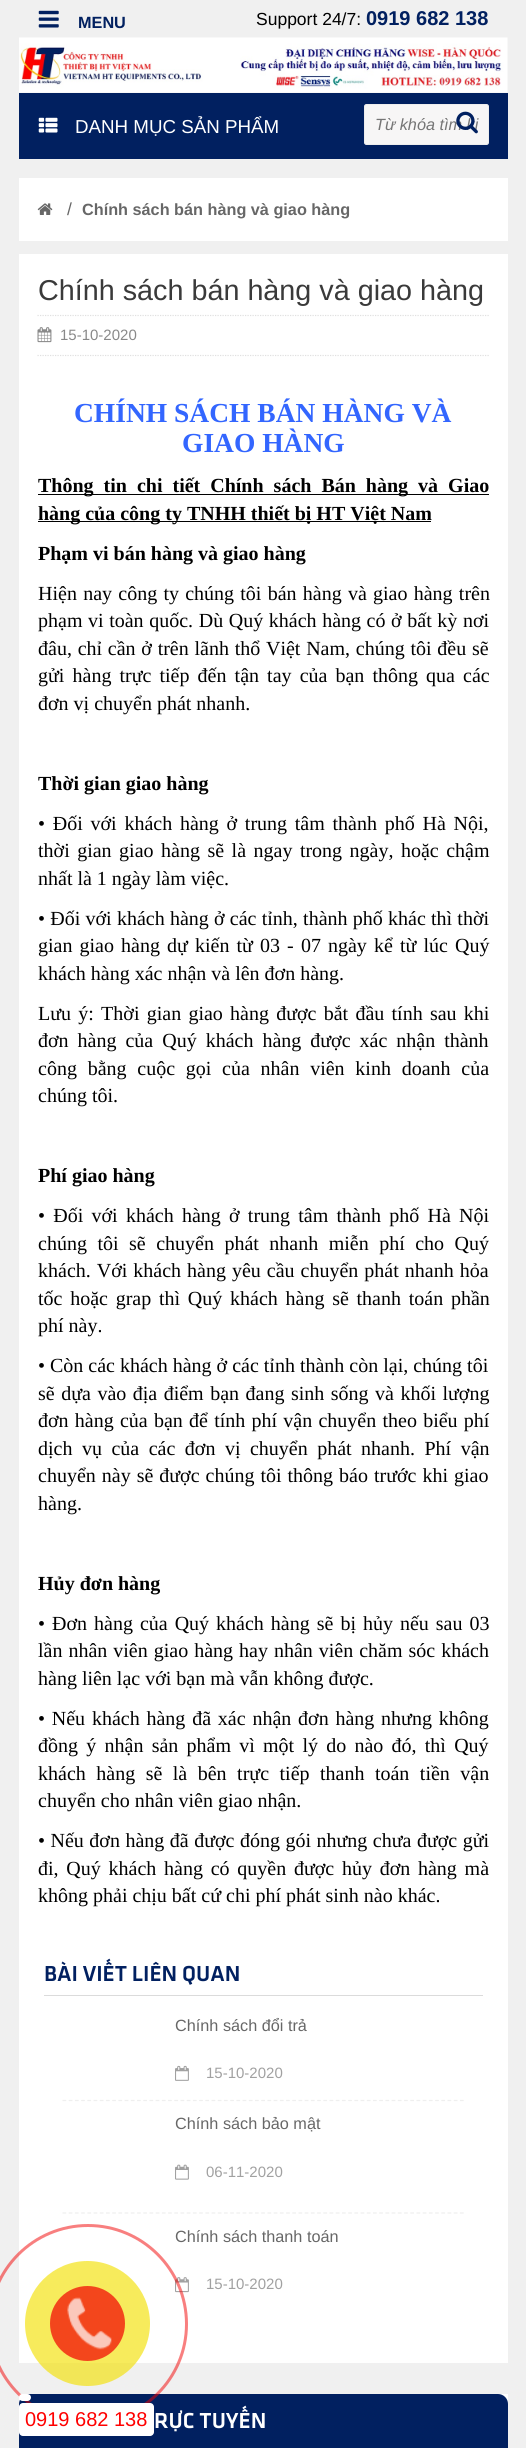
#include <cairo.h>
#include <math.h>
#include <stddef.h>

static cairo_t *c;
static void C(unsigned color){cairo_set_source_rgb(c, (color >> 16) / 255.0, (color >> 8 & 255) / 255.0, (color & 255) / 255.0);}
static void F(const char *family, double size, int italic, int bold){cairo_select_font_face(c, family, italic ? CAIRO_FONT_SLANT_ITALIC : CAIRO_FONT_SLANT_NORMAL,bold ? CAIRO_FONT_WEIGHT_BOLD : CAIRO_FONT_WEIGHT_NORMAL);cairo_set_font_size(c, size);}
static void T(double x, double y, const char *s){cairo_move_to(c, x, y);cairo_show_text(c, s);}
static void L(double x, double y, const char *s, double letter, double word){cairo_move_to(c, x, y);while (*s) {char ch[5] = {0};int n = 0;do ch[n++] = *s++; while ((*s & 0xC0) == 0x80);cairo_show_text(c, ch);cairo_rel_move_to(c, letter + word * (*ch == ' '), 0);}}
static void R(double x, double y, double w, double h){cairo_rectangle(c, x, y, w, h);cairo_fill(c);}
static void Q(double x, double y, double w, double h, double r){cairo_new_sub_path(c);cairo_arc(c, x + w - r, y + h - r, r, 0, M_PI / 2);cairo_arc(c, x + r, y + h - r, r, M_PI / 2, M_PI);cairo_arc(c, x + r, y + r, r, M_PI, 1.5 * M_PI);cairo_arc(c, x + w - r, y + r, r, 1.5 * M_PI, 2 * M_PI);cairo_close_path(c);}
static void I(const char *path, double x, double y, double w, double h){cairo_surface_t *image = cairo_image_surface_create_from_png(path);cairo_save(c);cairo_set_source_surface(c, image, x, y);cairo_rectangle(c, x, y, w, h);cairo_fill(c);cairo_restore(c);cairo_surface_destroy(image);}
int main(void) {
cairo_surface_t *surface = cairo_image_surface_create(CAIRO_FORMAT_RGB24, 526, 2448);
c = cairo_create(surface);
cairo_font_options_t *options = cairo_font_options_create();
cairo_font_options_set_hint_metrics(options, CAIRO_HINT_METRICS_OFF);
cairo_font_options_set_hint_style(options, CAIRO_HINT_STYLE_NONE);
cairo_set_font_options(c, options);
cairo_set_miter_limit(c, 4);
C(0xf0f0f0);
cairo_paint(c);
I("1.png",38,10,21,18);
F("Liberation Sans",16.25,0,1);
C(0x012060);
T(78,28,"MENU");
F("Liberation Sans",17.5,0,0);
C(0x000000);
T(256,25,"Support 24/7:");
F("Liberation Sans",20,0,1);
C(0x012060);
T(366,25,"0919 682 138");
I("2.png",19,37,489,56);
R(19,93,489,66);
I("3.png",38,117,20,16);
F("Liberation Sans",18.75,0,0);
C(0xffffff);
T(75,133,"DANH MỤC SẢN PHẨM");
C(0xf7f6f6);
Q(364.5,104.5,124,40,2);
cairo_fill_preserve(c);
C(0xededed);
cairo_set_line_width(c,1);
cairo_stroke(c);
F("Liberation Sans",16.25,1,0);
C(0x757575);
T(375,130,"Từ khóa tìm ki");
I("4.png",456,111,22,23);
C(0xffffff);
R(19,178,489,63);
I("5.png",37,203,16,12);
F("Liberation Sans",17.5,0,0);
C(0x676767);
T(67,215,"/");
F("Liberation Sans",16.25,0,1);
T(82,215,"Chính sách bán hàng và giao hàng");
C(0xffffff);
R(19,254,489,2109);
F("Liberation Sans",28.75,0,0);
C(0x3a3a3a);
T(38,300,"Chính sách bán hàng và giao hàng");
cairo_new_path(c);
cairo_move_to(c,37.5,315.5);
cairo_line_to(c,489,315.5);
C(0xe0e0e0);
cairo_set_line_width(c,1.2);
cairo_set_dash(c,(double[]){1.25,1.25},2,0);
cairo_stroke(c);
cairo_new_path(c);
cairo_move_to(c,37.5,355.5);
cairo_line_to(c,489,355.5);
cairo_stroke(c);
I("6.png",37,327,15,16);
F("Liberation Sans",15,0,0);
C(0x898989);
T(60,340,"15-10-2020");
F("Liberation Serif",27.5,0,1);
C(0x3366ff);
T(74,422,"CHÍNH SÁCH BÁN HÀNG VÀ");
T(182,452,"GIAO HÀNG");
C(0x000000);
R(38,494,451,1);
F("Liberation Serif",20,0,1);
L(38,492,"Thông tin chi tiết Chính sách Bán hàng và Giao",0,5);
R(38,521,393,1);
T(38,520,"hàng của công ty TNHH thiết bị HT Việt Nam");
T(38,560,"Phạm vi bán hàng và giao hàng");
F("Liberation Serif",20,0,0);
L(38,600,"Hiện nay công ty chúng tôi bán hàng và giao hàng trên",0,1.25);
L(38,627,"phạm vi toàn quốc. Dù Quý khách hàng có ở bất kỳ nơi",0,.6);
L(38,655,"đâu, chỉ cần ở trên lãnh thổ Việt Nam, chúng tôi đều sẽ",0,.75);
L(38,682,"gửi hàng trực tiếp đến tận tay của bạn thông qua các",0,3.1);
T(38,710,"đơn vị chuyển phát nhanh.");
F("Liberation Serif",20,0,1);
T(38,790,"Thời gian giao hàng");
F("Liberation Serif",20,0,0);
L(38,830,"• Đối với khách hàng ở trung tâm thành phố Hà Nội,",0,2.75);
L(38,857,"thời gian giao hàng sẽ là ngay trong ngày, hoặc chậm",0,2.5);
T(38,885,"nhất là 1 ngày làm việc.");
L(38,925,"• Đối với khách hàng ở các tỉnh, thành phố khác thì thời",0,.25);
L(38,952,"gian giao hàng dự kiến từ 03 - 07 ngày kể từ lúc Quý",0,2.1);
T(38,980,"khách hàng xác nhận và lên đơn hàng.");
L(38,1020,"Lưu ý: Thời gian giao hàng được bắt đầu tính sau khi",0,2.25);
L(38,1047,"đơn hàng của Quý khách hàng được xác nhận thành",0,4);
L(38,1075,"công bằng cuộc gọi của nhân viên kinh doanh của",0,5.75);
T(38,1102,"chúng tôi.");
F("Liberation Serif",20,0,1);
T(38,1182,"Phí giao hàng");
F("Liberation Serif",20,0,0);
L(38,1222,"• Đối với khách hàng ở trung tâm thành phố Hà Nội",0,3.25);
L(38,1250,"chúng tôi sẽ chuyển phát nhanh miễn phí cho Quý",0,5.5);
L(38,1277,"khách. Với khách hàng yêu cầu chuyển phát nhanh hỏa",0,1);
L(38,1305,"tốc hoặc grap thì Quý khách hàng sẽ thanh toán phần",0,2.75);
T(38,1332,"phí này.");
T(38,1372,"• Còn các khách hàng ở các tỉnh thành còn lại, chúng tôi");
L(38,1400,"sẽ dựa vào địa điểm bạn đang sinh sống và khối lượng",0,1.5);
L(38,1427,"đơn hàng của bạn để tính phí vận chuyển theo biểu phí",0,1.25);
L(38,1455,"dịch vụ của các đơn vị chuyển phát nhanh. Phí vận",0,4.5);
L(38,1482,"chuyển này sẽ được chúng tôi thông báo trước khi giao",0,1);
T(38,1510,"hàng.");
F("Liberation Serif",20,0,1);
T(38,1590,"Hủy đơn hàng");
F("Liberation Serif",20,0,0);
L(38,1630,"• Đơn hàng của Quý khách hàng sẽ bị hủy nếu sau 03",0,2);
L(38,1657,"lần nhân viên giao hàng hay nhân viên chăm sóc khách",0,1);
T(38,1685,"hàng liên lạc với bạn mà vẫn không được.");
L(38,1725,"• Nếu khách hàng đã xác nhận đơn hàng nhưng không",0,1.8);
L(38,1752,"đồng ý nhận sản phẩm vì một lý do nào đó, thì Quý",0,3.25);
L(38,1780,"khách hàng sẽ là bên trực tiếp thanh toán tiền vận",0,5.5);
T(38,1807,"chuyển cho nhân viên giao nhận.");
L(38,1847,"• Nếu đơn hàng đã được đóng gói nhưng chưa được gửi",0,.5);
L(38,1875,"đi, Quý khách hàng có quyền được hủy đơn hàng mà",0,2.75);
T(38,1902,"không phải chịu bất cứ chi phí phát sinh nào khác.");
C(0xdbdbdb);
R(44,1995,439,1);
F("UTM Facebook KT",22.5,0,0);
C(0x012060);
T(44,1981,"BÀI VIẾT LIÊN QUAN");
cairo_new_path(c);
cairo_move_to(c,62.5,2100.5);
cairo_line_to(c,464,2100.5);
C(0xefefef);
cairo_set_dash(c,(double[]){3.75,2.46},2,0);
cairo_stroke(c);
F("Liberation Sans",16.25,0,0);
C(0x676767);
T(175,2031,"Chính sách đổi trả");
I("7.png",175,2065,14,16);
F("Liberation Sans",15,0,0);
C(0xa1a1a1);
T(206,2078,"15-10-2020");
cairo_new_path(c);
cairo_move_to(c,62.5,2213);
cairo_line_to(c,464,2213);
C(0xefefef);
cairo_stroke(c);
F("Liberation Sans",16.25,0,0);
C(0x676767);
T(175,2129,"Chính sách bảo mật");
I("8.png",175,2164,14,16);
F("Liberation Sans",15,0,0);
C(0xa1a1a1);
T(206,2177,"06-11-2020");
F("Liberation Sans",16.25,0,0);
C(0x676767);
T(175,2242,"Chính sách thanh toán");
I("9.png",175,2277,14,16);
F("Liberation Sans",15,0,0);
C(0xa1a1a1);
T(206,2289,"15-10-2020");
C(0xffffff);
R(19,2394,489,10);
C(0x012060);
cairo_new_path(c);
cairo_move_to(c,29,2394);
cairo_line_to(c,498,2394);
cairo_curve_to(c,503.5,2394,508,2398.5,508,2404);
cairo_line_to(c,508,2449);
cairo_line_to(c,19,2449);
cairo_line_to(c,19,2404);
cairo_curve_to(c,19,2398.5,23.5,2394,29,2394);
cairo_close_path(c);
cairo_fill(c);
F("UTM Facebook KT",22.5,0,0);
C(0xffffff);
T(154,2428,"RỰC TUYẾN");
cairo_new_path(c);
cairo_arc(c,88,2324,98.5,0,2 * M_PI);
cairo_set_source_rgba(c,0.949,0,0,0.5);
cairo_set_line_width(c,3);
cairo_set_dash(c,NULL,0,0);
cairo_stroke(c);
cairo_set_source_rgba(c,0.949,0.875,0,0.64);
cairo_arc(c,87.5,2323.5,62.5,0,2 * M_PI);
cairo_fill(c);
C(0xf3461c);
cairo_arc(c,87.5,2323.5,37.5,0,2 * M_PI);
cairo_fill(c);
I("10.png",67,2297,45,53);
C(0xffffff);
Q(19,2394,12,7,3.5);
cairo_fill(c);
Q(19,2403,135,33,4);
cairo_fill(c);
F("Liberation Sans",20,0,0);
C(0xff0000);
T(25,2426,"0919 682 138");
cairo_surface_write_to_png(surface, "o.png");
cairo_font_options_destroy(options);
cairo_destroy(c);
cairo_surface_destroy(surface);
return 0;
}
